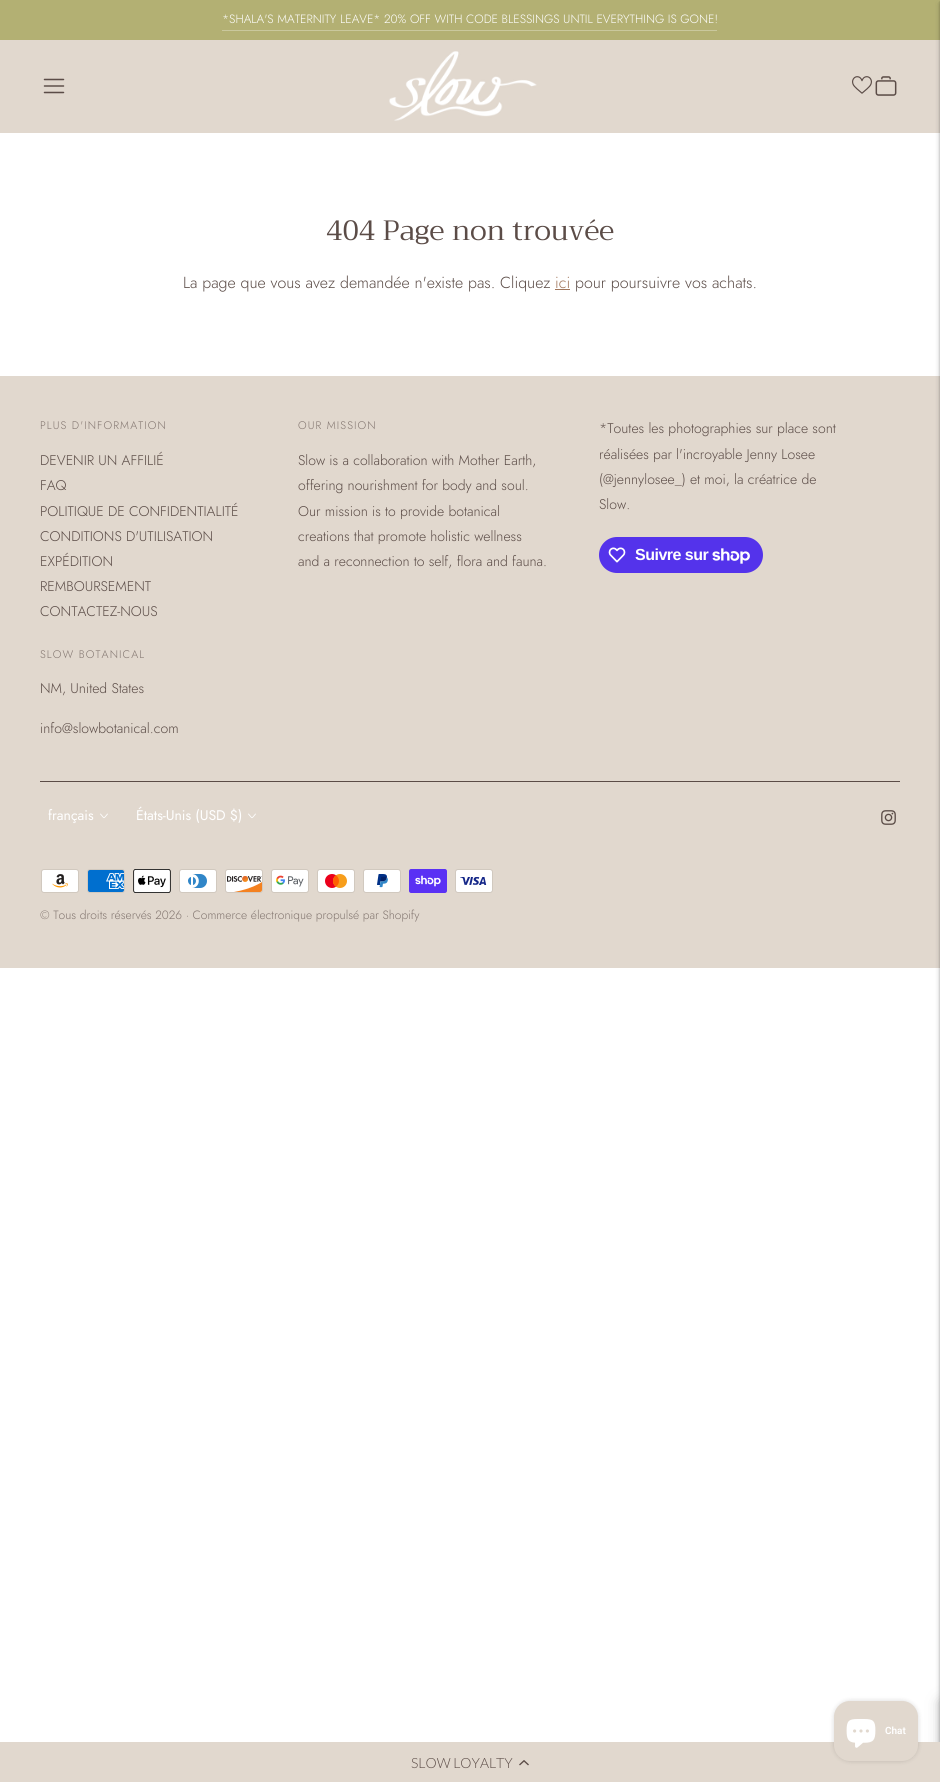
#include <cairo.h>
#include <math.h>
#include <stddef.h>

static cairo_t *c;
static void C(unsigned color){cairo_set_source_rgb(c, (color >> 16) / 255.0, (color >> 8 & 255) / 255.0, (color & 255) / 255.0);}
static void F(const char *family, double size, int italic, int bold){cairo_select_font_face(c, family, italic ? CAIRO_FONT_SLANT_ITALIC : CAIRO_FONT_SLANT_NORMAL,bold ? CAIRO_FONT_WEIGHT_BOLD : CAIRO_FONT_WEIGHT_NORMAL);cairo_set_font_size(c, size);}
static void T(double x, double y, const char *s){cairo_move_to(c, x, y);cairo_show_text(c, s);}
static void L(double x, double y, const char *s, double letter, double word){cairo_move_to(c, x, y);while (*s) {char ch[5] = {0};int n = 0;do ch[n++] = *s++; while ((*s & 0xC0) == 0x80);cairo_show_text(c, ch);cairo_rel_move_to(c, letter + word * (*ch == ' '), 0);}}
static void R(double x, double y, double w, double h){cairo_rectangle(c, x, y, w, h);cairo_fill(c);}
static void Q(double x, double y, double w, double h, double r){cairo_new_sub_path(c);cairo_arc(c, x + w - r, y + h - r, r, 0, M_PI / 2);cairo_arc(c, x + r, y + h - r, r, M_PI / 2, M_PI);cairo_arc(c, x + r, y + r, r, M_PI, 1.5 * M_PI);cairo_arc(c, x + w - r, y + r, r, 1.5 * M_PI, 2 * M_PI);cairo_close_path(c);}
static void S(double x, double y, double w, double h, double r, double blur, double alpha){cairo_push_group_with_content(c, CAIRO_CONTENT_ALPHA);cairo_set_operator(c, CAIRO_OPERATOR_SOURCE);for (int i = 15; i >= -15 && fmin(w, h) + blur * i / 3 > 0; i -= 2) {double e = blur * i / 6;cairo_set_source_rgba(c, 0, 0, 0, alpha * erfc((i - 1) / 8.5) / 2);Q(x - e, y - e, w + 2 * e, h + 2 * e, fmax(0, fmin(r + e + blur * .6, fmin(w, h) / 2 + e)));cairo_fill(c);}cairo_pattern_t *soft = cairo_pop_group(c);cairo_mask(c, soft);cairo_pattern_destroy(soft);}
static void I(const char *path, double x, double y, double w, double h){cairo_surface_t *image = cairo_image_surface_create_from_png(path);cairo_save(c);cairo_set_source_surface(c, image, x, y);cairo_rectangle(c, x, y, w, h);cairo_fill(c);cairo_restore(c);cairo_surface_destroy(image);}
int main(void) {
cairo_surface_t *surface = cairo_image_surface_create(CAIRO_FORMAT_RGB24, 940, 1782);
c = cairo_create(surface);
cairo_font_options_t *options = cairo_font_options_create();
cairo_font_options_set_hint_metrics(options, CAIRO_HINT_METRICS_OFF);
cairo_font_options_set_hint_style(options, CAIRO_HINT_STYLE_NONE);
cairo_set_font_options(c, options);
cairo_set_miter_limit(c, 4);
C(0xffffff);
cairo_paint(c);
C(0xb3b073);
R(0,0,940,40);
C(0xe1d8ce);
R(0,40,940,93);
R(0,376,940,592);
C(0x000000);
S(940,4,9,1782,0,3,.1);
S(940,2,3,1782,0,1,.15);
F("Jost Light",12,0,0);
C(0xffffff);
T(222,23,"*SHALA'S MATERNITY LEAVE* 20% OFF WITH CODE BLESSINGS UNTIL EVERYTHING IS GONE!");
C(0xcac89d);
R(222,30,495,1);
cairo_new_path(c);
cairo_move_to(c,44.5,86);
cairo_line_to(c,63.5,86);
cairo_move_to(c,44.5,79.5);
cairo_line_to(c,63.5,79.5);
cairo_move_to(c,44.5,92.5);
cairo_line_to(c,63.5,92.5);
C(0x5b4c47);
cairo_set_line_width(c,1.5);
cairo_set_line_cap(c,CAIRO_LINE_CAP_ROUND);
cairo_set_line_join(c,CAIRO_LINE_JOIN_ROUND);
cairo_stroke(c);
I("1.png",389,51,148,70);
I("2.png",852,76,20,18);
I("3.png",875,76,22,20);
C(0x000000);
S(940,4,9,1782,0,3,.1);
S(940,2,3,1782,0,1,.15);
F("Trirong",28,0,0);
C(0x5b4c47);
T(326,240,"404 Page non trouvée");
F("Jost Light",16,0,0);
T(183,288,"La page que vous avez demandée n'existe pas. Cliquez");
C(0xa0755a);
T(555,288,"ici");
R(555,289,15,1);
C(0x5b4c47);
T(575,288,"pour poursuivre vos achats.");
F("Jost Light",11,0,0);
C(0x837670);
L(40,429,"PLUS D'INFORMATION",1.1,0);
F("Jost Light",14,0,0);
C(0x5b4c47);
T(40,465,"DEVENIR UN AFFILIÉ");
T(40,490,"FAQ");
T(40,516,"POLITIQUE DE CONFIDENTIALITÉ");
T(40,541,"CONDITIONS D'UTILISATION");
T(40,566,"EXPÉDITION");
T(40,591,"REMBOURSEMENT");
T(40,616,"CONTACTEZ-NOUS");
F("Jost Light",11,0,0);
C(0x837670);
L(298,429,"OUR MISSION",1.1,0);
F("Jost Light",14,0,0);
C(0x5b4c47);
T(298,465,"Slow is a collaboration with Mother Earth,");
T(298,490,"offering nourishment for body and soul.");
T(298,516,"Our mission is to provide botanical");
T(298,541,"creations that promote holistic wellness");
T(298,566,"and a reconnection to self, flora and fauna.");
T(599,433,"*Toutes les photographies sur place sont");
T(599,459,"réalisées par l'incroyable Jenny Losee");
T(599,484,"(@jennylosee_) et moi, la créatrice de");
T(599,509,"Slow.");
C(0x5433eb);
Q(599,537,164,36,18);
cairo_fill(c);
I("4.png",608,547,18,16);
F("Liberation Sans",16,0,1);
C(0xffffff);
L(635,560,"Suivre sur",-.5,0);
I("5.png",712,548,38,16);
F("Jost Light",11,0,0);
C(0x837670);
L(40,658,"SLOW BOTANICAL",1.1,0);
F("Jost Light",14,0,0);
C(0x5b4c47);
T(40,693,"NM, United States");
T(40,733,"info@slowbotanical.com");
R(40,781,860,1);
F("Jost",14,0,0);
C(0xffffff);
T(48,820,"français");
cairo_new_path(c);
cairo_move_to(c,100.5,814);
cairo_curve_to(c,105,819,103,819,107.5,814);
cairo_set_line_width(c,.8);
cairo_stroke(c);
T(136,820,"États-Unis (USD $)");
cairo_new_path(c);
cairo_move_to(c,248.5,814);
cairo_curve_to(c,253,819,251,819,255.5,814);
cairo_stroke(c);
I("6.png",881,810,15,15);
I("7.png",41,869,38,24);
I("8.png",87,869,38,24);
I("9.png",133,869,38,24);
I("10.png",179,869,38,24);
I("11.png",225,869,38,24);
I("12.png",271,869,38,24);
I("13.png",317,869,38,24);
I("14.png",363,869,38,24);
I("15.png",409,869,38,24);
I("16.png",455,869,38,24);
F("Jost Light",12,0,0);
C(0x837670);
T(40,919,"© Tous droits réservés 2026 · Commerce électronique propulsé par Shopify");
C(0x757575);
S(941,1702,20,50,0,7,.5);
C(0xe1d8ce);
R(0,1742,940,40);
C(0x000000);
S(834,1701,84,60,16,2.5,.15);
C(0xe1d8ce);
Q(834,1701,84,60,16);
cairo_fill(c);
I("17.png",846,1719,30,29);
F("Roboto SemiBold",10,0,0);
C(0xffffff);
T(885,1734,"Chat");
F("Lato Light",14,0,0);
C(0x5b4c47);
T(411,1768,"SLOW LOYALTY");
I("18.png",519,1760,10,6);
cairo_surface_write_to_png(surface, "o.png");
cairo_font_options_destroy(options);
cairo_destroy(c);
cairo_surface_destroy(surface);
return 0;
}
